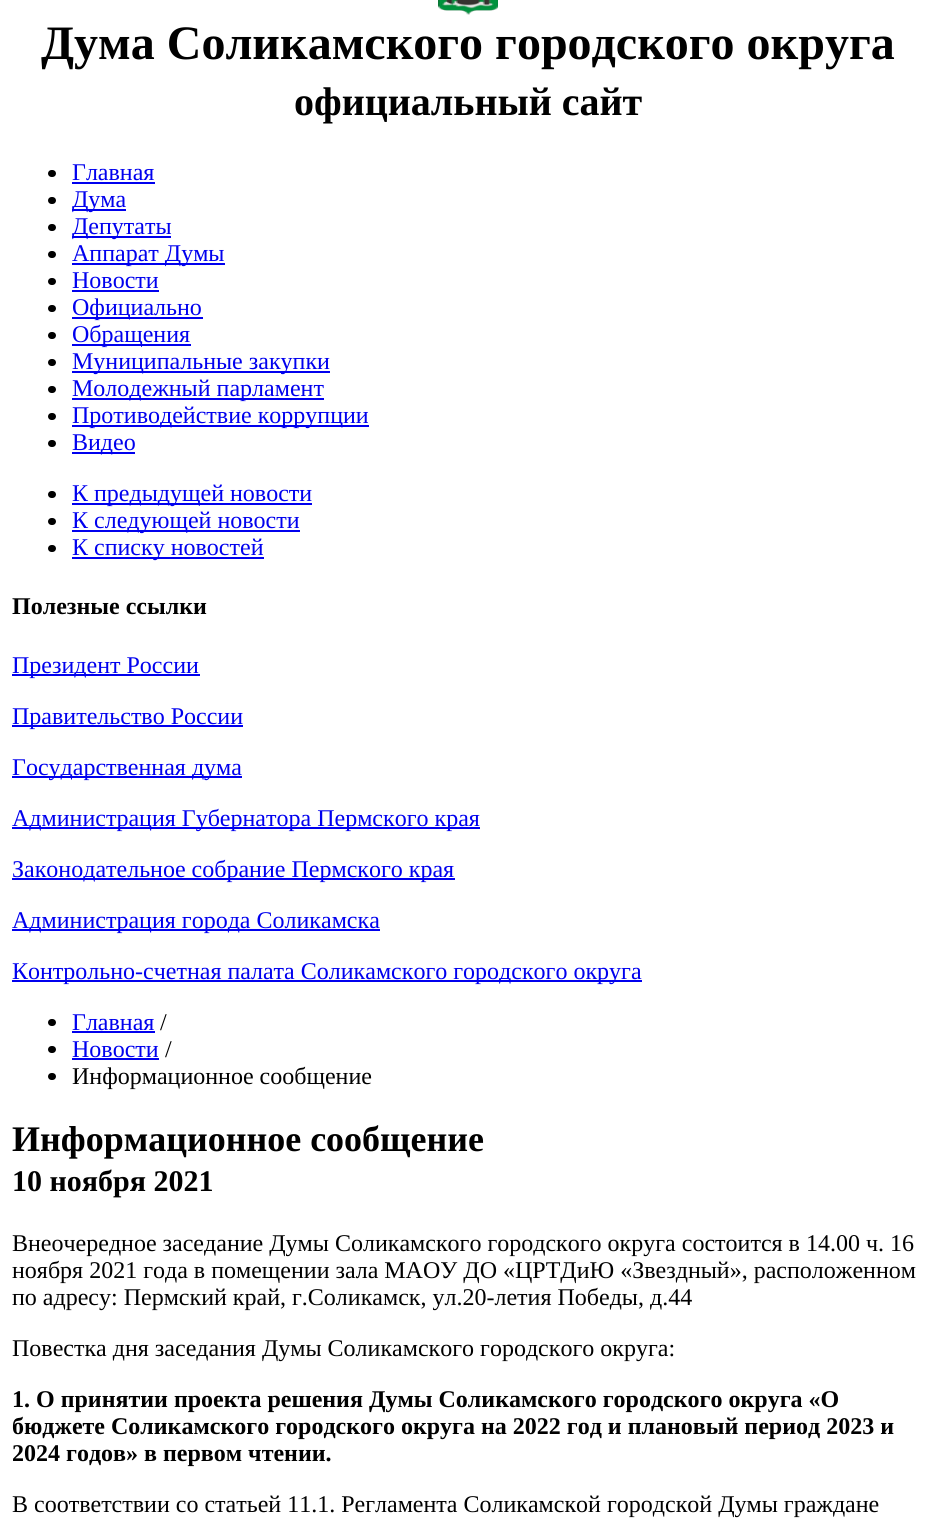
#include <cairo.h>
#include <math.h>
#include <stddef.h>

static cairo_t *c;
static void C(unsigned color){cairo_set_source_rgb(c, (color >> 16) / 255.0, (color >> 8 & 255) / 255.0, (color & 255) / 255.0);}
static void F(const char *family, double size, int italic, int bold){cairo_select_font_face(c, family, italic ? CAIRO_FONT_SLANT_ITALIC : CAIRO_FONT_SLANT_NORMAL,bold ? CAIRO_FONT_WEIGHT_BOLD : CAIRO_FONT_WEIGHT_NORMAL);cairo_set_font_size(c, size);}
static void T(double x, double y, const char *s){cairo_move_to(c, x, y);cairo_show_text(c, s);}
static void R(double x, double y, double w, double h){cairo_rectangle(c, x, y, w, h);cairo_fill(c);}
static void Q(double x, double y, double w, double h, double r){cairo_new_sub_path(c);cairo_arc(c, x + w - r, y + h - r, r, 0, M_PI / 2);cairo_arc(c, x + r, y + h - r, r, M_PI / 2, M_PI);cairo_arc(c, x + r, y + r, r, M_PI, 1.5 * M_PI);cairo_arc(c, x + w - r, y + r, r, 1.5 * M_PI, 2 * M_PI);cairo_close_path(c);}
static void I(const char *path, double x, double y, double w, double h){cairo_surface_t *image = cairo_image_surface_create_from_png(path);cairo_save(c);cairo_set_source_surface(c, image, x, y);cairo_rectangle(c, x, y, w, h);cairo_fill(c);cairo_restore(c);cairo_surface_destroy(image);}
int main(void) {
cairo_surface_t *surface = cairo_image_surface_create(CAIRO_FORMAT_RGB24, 935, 1528);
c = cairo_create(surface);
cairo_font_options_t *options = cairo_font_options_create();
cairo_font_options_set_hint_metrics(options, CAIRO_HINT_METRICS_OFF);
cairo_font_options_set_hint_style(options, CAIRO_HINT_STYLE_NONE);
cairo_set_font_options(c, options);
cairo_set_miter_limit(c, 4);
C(0xffffff);
cairo_paint(c);
I("1.png",438,0,60,15);
F("Liberation Serif",48,0,1);
C(0x000000);
T(41,59,"Дума Соликамского городского округа");
F("Liberation Serif",40,0,1);
T(294,115,"официальный сайт");
Q(48,170,8,7,3.5);
cairo_fill(c);
F("Liberation Serif",24,0,0);
C(0x0000ee);
T(72,180,"Главная");
R(72,182,83,2);
C(0x000000);
Q(48,197,8,7,3.5);
cairo_fill(c);
C(0x0000ee);
R(72,209,54,2);
T(72,207,"Дума");
C(0x000000);
Q(48,224,8,7,3.5);
cairo_fill(c);
C(0x0000ee);
R(72,236,99,2);
T(72,234,"Депутаты");
C(0x000000);
Q(48,251,8,7,3.5);
cairo_fill(c);
C(0x0000ee);
R(72,263,153,2);
T(72,261,"Аппарат Думы");
C(0x000000);
Q(48,278,8,7,3.5);
cairo_fill(c);
C(0x0000ee);
T(72,288,"Новости");
R(72,290,87,2);
C(0x000000);
Q(48,305,8,7,3.5);
cairo_fill(c);
C(0x0000ee);
R(72,317,131,2);
T(72,315,"Официально");
C(0x000000);
Q(48,332,8,7,3.5);
cairo_fill(c);
C(0x0000ee);
R(72,344,119,2);
T(72,342,"Обращения");
C(0x000000);
Q(48,359,8,7,3.5);
cairo_fill(c);
C(0x0000ee);
R(72,371,258,2);
T(72,369,"Муниципальные закупки");
C(0x000000);
Q(48,386,8,7,3.5);
cairo_fill(c);
C(0x0000ee);
R(72,398,252,2);
T(72,396,"Молодежный парламент");
C(0x000000);
Q(48,413,8,7,3.5);
cairo_fill(c);
C(0x0000ee);
R(72,425,297,2);
T(72,423,"Противодействие коррупции");
C(0x000000);
Q(48,440,8,7,3.5);
cairo_fill(c);
C(0x0000ee);
R(72,452,63,2);
T(72,450,"Видео");
C(0x000000);
Q(48,491,8,7,3.5);
cairo_fill(c);
C(0x0000ee);
R(72,503,240,2);
T(72,501,"К предыдущей новости");
C(0x000000);
Q(48,518,8,7,3.5);
cairo_fill(c);
C(0x0000ee);
R(72,530,228,2);
T(72,528,"К следующей новости");
C(0x000000);
Q(48,545,8,7,3.5);
cairo_fill(c);
C(0x0000ee);
R(72,557,192,2);
T(72,555,"К списку новостей");
F("Liberation Serif",24,0,1);
C(0x000000);
T(12,614,"Полезные ссылки");
C(0x0000ee);
R(12,674,188,2);
F("Liberation Serif",24,0,0);
T(12,673,"Президент России");
R(12,725,231,2);
T(12,724,"Правительство России");
R(12,776,230,2);
T(12,775,"Государственная дума");
R(12,827,468,2);
T(12,826,"Администрация Губернатора Пермского края");
R(12,878,443,2);
T(12,877,"Законодательное собрание Пермского края");
R(12,929,368,2);
T(12,928,"Администрация города Соликамска");
R(12,980,630,2);
T(12,979,"Контрольно-счетная палата Соликамского городского округа");
C(0x000000);
Q(48,1019,8,7,3.5);
cairo_fill(c);
C(0x0000ee);
T(72,1030,"Главная");
R(72,1031,83,2);
C(0x000000);
T(160,1030,"/");
Q(48,1046,8,7,3.5);
cairo_fill(c);
C(0x0000ee);
T(72,1057,"Новости");
R(72,1058,87,2);
C(0x000000);
T(165,1057,"/");
Q(48,1073,8,7,3.5);
cairo_fill(c);
T(72,1084,"Информационное сообщение");
F("Liberation Serif",36,0,1);
T(12,1151,"Информационное сообщение");
F("Liberation Serif",30,0,1);
T(12,1191,"10 ноября 2021");
F("Liberation Serif",24,0,0);
T(12,1251,"Внеочередное заседание Думы Соликамского городского округа состоится в 14.00 ч. 16");
T(12,1278,"ноября 2021 года в помещении зала МАОУ ДО «ЦРТДиЮ «Звездный», расположенном");
T(12,1305,"по адресу: Пермский край, г.Соликамск, ул.20-летия Победы, д.44");
T(12,1356,"Повестка дня заседания Думы Соликамского городского округа:");
F("Liberation Serif",24,0,1);
T(12,1407,"1. О принятии проекта решения Думы Соликамского городского округа «О");
T(12,1434,"бюджете Соликамского городского округа на 2022 год и плановый период 2023 и");
T(12,1461,"2024 годов» в первом чтении.");
F("Liberation Serif",24,0,0);
T(12,1512,"В соответствии со статьей 11.1. Регламента Соликамской городской Думы граждане");
cairo_surface_write_to_png(surface, "o.png");
cairo_font_options_destroy(options);
cairo_destroy(c);
cairo_surface_destroy(surface);
return 0;
}
